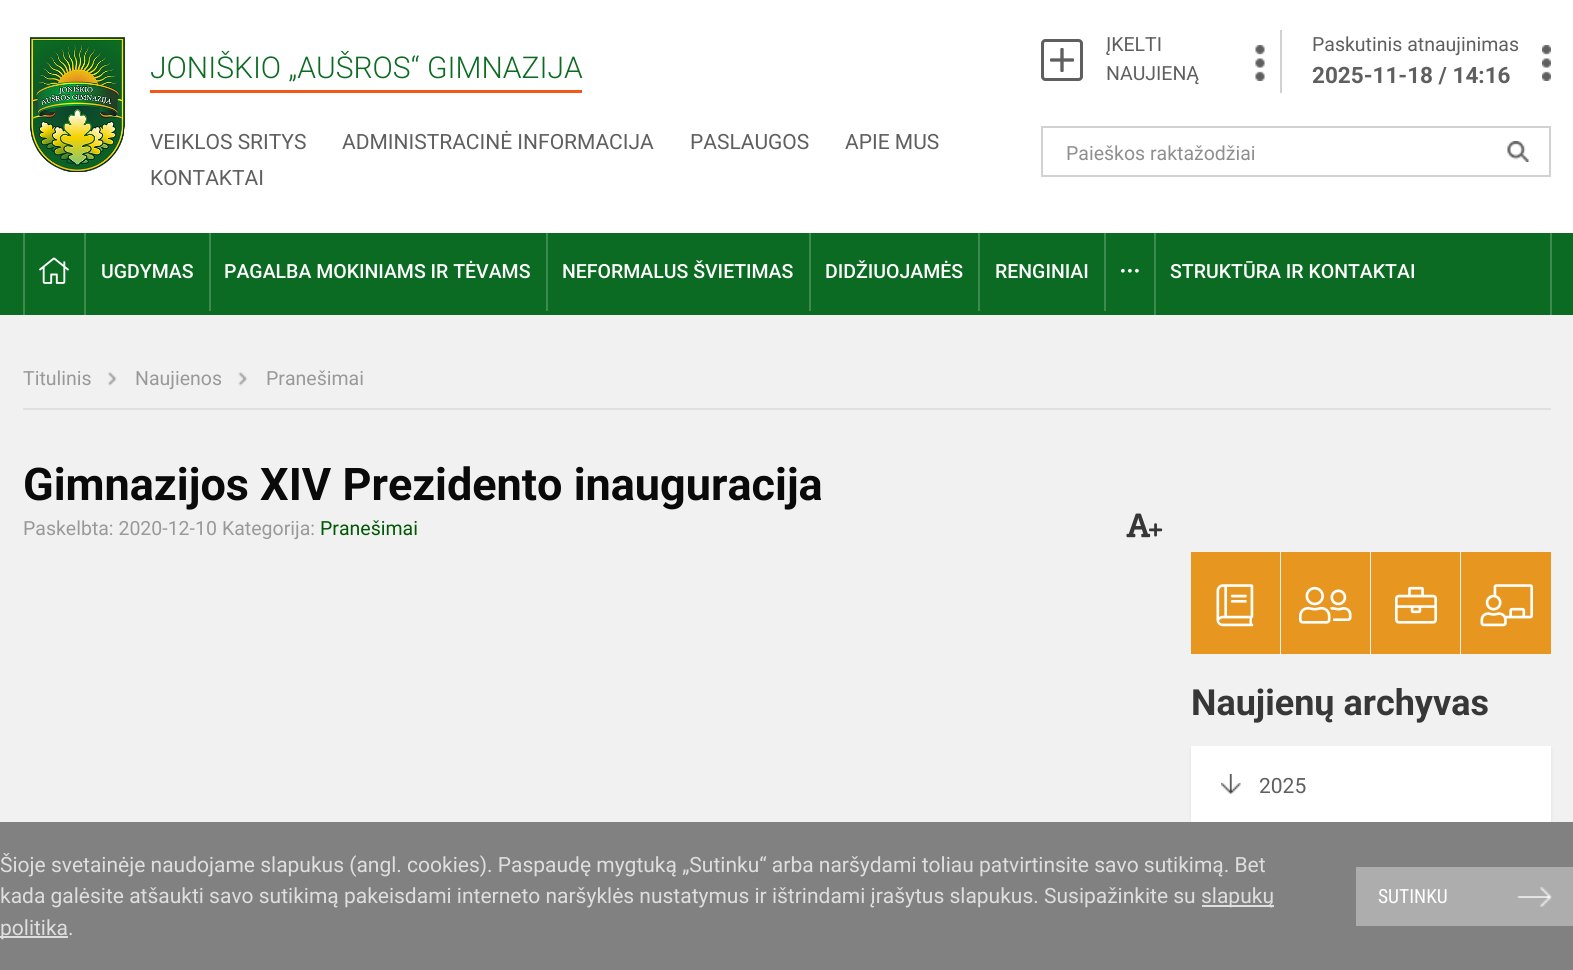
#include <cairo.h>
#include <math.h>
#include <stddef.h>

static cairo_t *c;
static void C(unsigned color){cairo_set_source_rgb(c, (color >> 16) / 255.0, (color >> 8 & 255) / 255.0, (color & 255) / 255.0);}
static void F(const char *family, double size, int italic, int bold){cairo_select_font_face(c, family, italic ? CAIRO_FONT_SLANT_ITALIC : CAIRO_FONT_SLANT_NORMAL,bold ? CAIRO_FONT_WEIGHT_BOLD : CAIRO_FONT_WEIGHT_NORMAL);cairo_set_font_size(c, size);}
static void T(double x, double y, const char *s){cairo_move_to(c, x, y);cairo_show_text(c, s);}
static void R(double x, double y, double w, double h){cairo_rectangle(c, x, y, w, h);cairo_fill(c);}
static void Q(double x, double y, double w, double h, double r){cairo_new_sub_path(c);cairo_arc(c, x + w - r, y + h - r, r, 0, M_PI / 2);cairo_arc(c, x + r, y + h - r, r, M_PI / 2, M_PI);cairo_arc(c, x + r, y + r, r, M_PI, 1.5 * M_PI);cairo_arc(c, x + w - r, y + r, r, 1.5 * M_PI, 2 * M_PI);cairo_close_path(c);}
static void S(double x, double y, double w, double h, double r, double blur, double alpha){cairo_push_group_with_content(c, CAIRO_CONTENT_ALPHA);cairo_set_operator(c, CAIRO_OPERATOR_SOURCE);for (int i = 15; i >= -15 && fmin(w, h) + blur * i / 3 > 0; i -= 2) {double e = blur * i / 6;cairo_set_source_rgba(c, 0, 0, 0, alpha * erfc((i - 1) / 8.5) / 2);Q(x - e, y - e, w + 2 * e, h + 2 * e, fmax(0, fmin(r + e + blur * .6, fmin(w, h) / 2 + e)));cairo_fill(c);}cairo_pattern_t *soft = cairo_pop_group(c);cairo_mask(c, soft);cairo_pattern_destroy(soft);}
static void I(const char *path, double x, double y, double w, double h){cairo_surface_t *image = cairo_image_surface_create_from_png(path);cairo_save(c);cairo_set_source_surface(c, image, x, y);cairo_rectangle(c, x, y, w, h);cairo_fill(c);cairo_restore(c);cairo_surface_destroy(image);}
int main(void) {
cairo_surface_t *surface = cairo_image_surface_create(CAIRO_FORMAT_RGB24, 1573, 970);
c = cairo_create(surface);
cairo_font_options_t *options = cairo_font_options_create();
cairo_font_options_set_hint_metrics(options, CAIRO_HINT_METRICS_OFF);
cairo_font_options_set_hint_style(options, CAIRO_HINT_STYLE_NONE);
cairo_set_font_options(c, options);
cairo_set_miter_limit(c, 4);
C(0xffffff);
cairo_paint(c);
I("1.png",30,37,95,135);
F("Roboto Light",30,0,0);
C(0x0c6b22);
T(150,78,"JONIŠKIO „AUŠROS“ GIMNAZIJA");
C(0xf35816);
R(150,90,432,3);
F("Roboto",21,0,0);
C(0x5f5f5f);
T(150,149,"VEIKLOS SRITYS");
T(342,149,"ADMINISTRACINĖ INFORMACIJA");
T(690,149,"PASLAUGOS");
T(845,149,"APIE MUS");
T(150,185,"KONTAKTAI");
C(0xd1d1d1);
R(1280,30,2,63);
I("2.png",1041,39,42,42);
F("Roboto",19.5,0,0);
C(0x5f5f5f);
T(1106,51,"ĮKELTI");
T(1106,80,"NAUJIENĄ");
I("3.png",1255,45,10,36);
T(1312,51,"Paskutinis atnaujinimas");
F("Roboto",22.5,0,1);
T(1312,83,"2025-11-18 / 14:16");
I("4.png",1542,45,9,36);
cairo_rectangle(c,1042,127,508,49);
C(0xd1d1d1);
cairo_stroke(c);
F("Roboto",19.5,0,0);
C(0x8f8f8f);
T(1066,160,"Paieškos raktažodžiai");
I("5.png",1507,141,22,21);
C(0x0c6b22);
R(0,233,1573,82);
C(0x3d894e);
R(1550,233,2,82);
R(23,233,2,82);
R(84,233,2,82);
I("6.png",39,257,30,27);
R(209,233,2,78);
F("Roboto Medium",19.5,0,0);
C(0xffffff);
T(101,278,"UGDYMAS");
C(0x3d894e);
R(546,233,2,78);
C(0xffffff);
T(224,278,"PAGALBA MOKINIAMS IR TĖVAMS");
C(0x3d894e);
R(809,233,2,78);
C(0xffffff);
T(562,278,"NEFORMALUS ŠVIETIMAS");
C(0x3d894e);
R(978,233,2,78);
C(0xffffff);
T(825,278,"DIDŽIUOJAMĖS");
C(0x3d894e);
R(1104,233,2,78);
C(0xffffff);
T(995,278,"RENGINIAI");
C(0x3d894e);
R(1154,233,2,82);
I("7.png",1121,268,18,5);
C(0xffffff);
T(1170,278,"STRUKTŪRA IR KONTAKTAI");
C(0xf1f1f1);
R(0,315,1573,507);
C(0xe0e0e0);
R(23,408,1528,2);
F("Roboto",19.5,0,0);
C(0x999999);
T(23,385,"Titulinis");
I("8.png",108,372,9,14);
T(135,385,"Naujienos");
I("9.png",238,372,10,14);
T(266,385,"Pranešimai");
F("Roboto",45,0,1);
C(0x0a0a0a);
T(23,500,"Gimnazijos XIV Prezidento inauguracija");
F("Roboto",19.5,0,0);
C(0x999999);
T(23,535,"Paskelbta: 2020-12-10");
T(222,535,"Kategorija:");
C(0x005705);
T(320,535,"Pranešimai");
I("10.png",1126,513,25,25);
I("11.png",1149,523,14,14);
C(0xe79720);
R(1191,552,89,102);
I("12.png",1216,584,38,43);
R(1281,552,89,102);
I("13.png",1299,586,53,38);
R(1371,552,89,102);
I("14.png",1395,586,42,38);
R(1461,552,90,102);
I("15.png",1480,584,53,43);
F("Roboto",36,0,1);
C(0x373737);
T(1191,715,"Naujienų archyvas");
C(0xe0e0e0);
S(1191,749,360,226,0,1.5,1);
C(0xffffff);
R(1191,746,360,76);
I("16.png",1221,774,20,20);
F("Roboto",21,0,0);
C(0x5f5f5f);
T(1259,793,"2025");
C(0x818181);
R(0,822,1573,148);
C(0xdedede);
T(0,872,"Šioje svetainėje naudojame slapukus (angl. cookies). Paspaudę mygtuką „Sutinku“ arba naršydami toliau patvirtinsite savo sutikimą. Bet");
T(0,903,"kada galėsite atšaukti savo sutikimą pakeisdami interneto naršyklės nustatymus ir ištrindami įrašytus slapukus. Susipažinkite su");
R(1202,905,72,2);
T(1201,903,"slapukų");
R(0,936,68,2);
T(0,935,"politika.");
C(0xadadad);
R(1356,867,217,59);
F("Roboto Condensed",19.5,0,0);
C(0xffffff);
T(1378,903,"SUTINKU");
I("17.png",1517,887,35,20);
cairo_surface_write_to_png(surface, "o.png");
cairo_font_options_destroy(options);
cairo_destroy(c);
cairo_surface_destroy(surface);
return 0;
}
